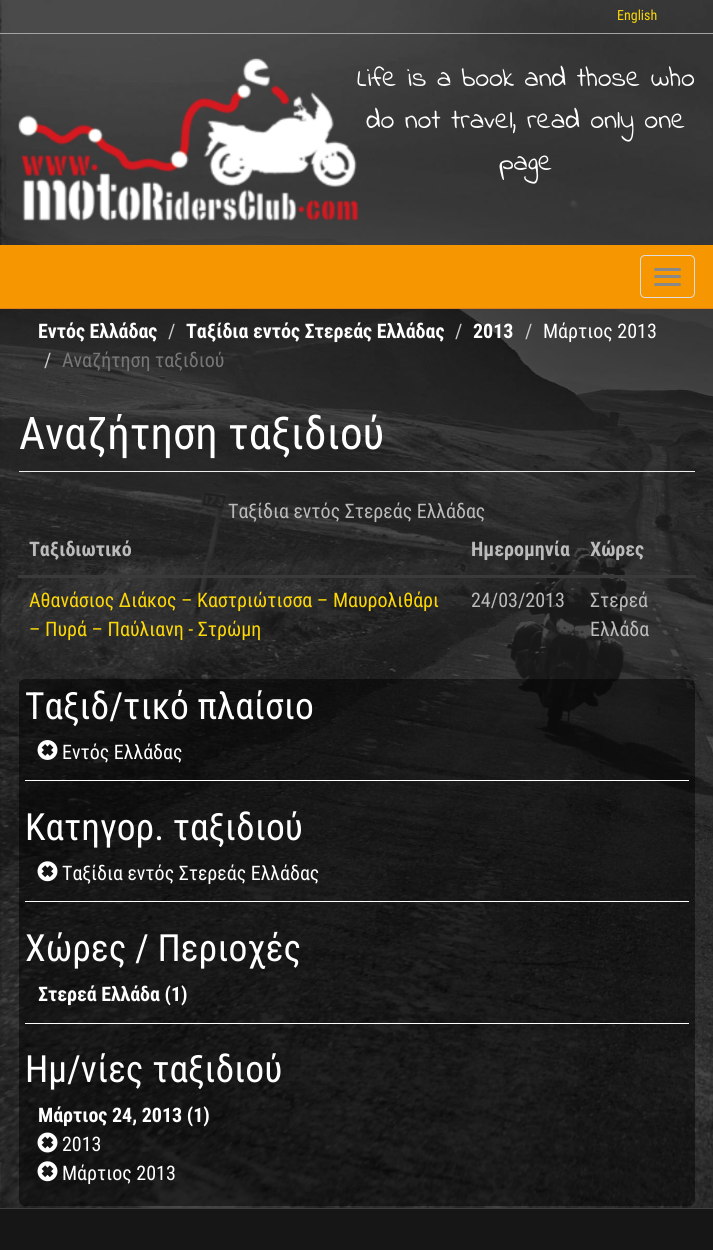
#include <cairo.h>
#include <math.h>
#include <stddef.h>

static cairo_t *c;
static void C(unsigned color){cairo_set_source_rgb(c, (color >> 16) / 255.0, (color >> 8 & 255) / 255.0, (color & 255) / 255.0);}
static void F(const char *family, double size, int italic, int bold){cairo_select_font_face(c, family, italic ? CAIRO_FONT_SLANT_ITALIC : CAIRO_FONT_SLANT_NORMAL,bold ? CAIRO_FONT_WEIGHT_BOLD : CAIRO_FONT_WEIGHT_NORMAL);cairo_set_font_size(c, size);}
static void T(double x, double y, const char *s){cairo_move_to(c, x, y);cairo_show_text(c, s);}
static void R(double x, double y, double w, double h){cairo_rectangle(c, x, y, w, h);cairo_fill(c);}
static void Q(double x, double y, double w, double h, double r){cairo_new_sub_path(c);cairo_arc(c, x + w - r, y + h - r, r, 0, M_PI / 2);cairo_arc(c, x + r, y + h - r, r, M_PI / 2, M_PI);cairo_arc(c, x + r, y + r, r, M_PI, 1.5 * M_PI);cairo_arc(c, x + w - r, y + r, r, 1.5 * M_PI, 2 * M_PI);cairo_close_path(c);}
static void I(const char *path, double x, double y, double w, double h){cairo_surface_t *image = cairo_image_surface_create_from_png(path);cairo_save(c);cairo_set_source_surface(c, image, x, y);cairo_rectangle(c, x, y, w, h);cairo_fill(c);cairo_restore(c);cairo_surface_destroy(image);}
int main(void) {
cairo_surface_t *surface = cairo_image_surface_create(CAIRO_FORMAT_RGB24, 713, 1250);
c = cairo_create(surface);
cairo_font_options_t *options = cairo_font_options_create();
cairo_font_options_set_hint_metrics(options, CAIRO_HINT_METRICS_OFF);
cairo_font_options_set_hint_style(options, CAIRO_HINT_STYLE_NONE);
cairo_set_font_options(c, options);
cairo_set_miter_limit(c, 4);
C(0x1d1d1d);
cairo_paint(c);
I("1.png",0,0,713,1208);
C(0xa3a3a3);
R(0,33,713,1);
F("Roboto Condensed",14,0,0);
C(0xfcd708);
T(617,20,"English");
F("Indie Flower",28,0,0);
C(0xffffff);
T(357,86,"Life is a book and those who");
I("2.png",18,58,340,163);
T(366,128,"do not travel, read only one");
T(499,170,"page");
C(0xf69601);
R(0,245,713,63);
C(0xdf7f11);
R(0,308,713,1);
Q(640.5,255.5,54,42,4.5);
C(0xdddddd);
cairo_set_line_width(c,1);
cairo_stroke(c);
C(0x888888);
Q(654,268,27,3,1.5);
cairo_fill(c);
Q(654,275,27,3,1.5);
cairo_fill(c);
Q(654,283,27,3,1.5);
cairo_fill(c);
F("Roboto Condensed",20,0,1);
C(0xffffff);
T(38,338,"Εντός Ελλάδας");
F("Roboto Condensed",20,0,0);
C(0xcccccc);
T(168,338,"/");
F("Roboto Condensed",20,0,1);
C(0xffffff);
T(186,338,"Ταξίδια εντός Στερεάς Ελλάδας");
F("Roboto Condensed",20,0,0);
C(0xcccccc);
T(455,338,"/");
F("Roboto Condensed",20,0,1);
C(0xffffff);
T(473,338,"2013");
F("Roboto Condensed",20,0,0);
C(0xcccccc);
T(525,338,"/");
C(0xffffff);
T(543,338,"Μάρτιος 2013");
C(0xcccccc);
T(44,367,"/");
C(0x777777);
T(62,367,"Αναζήτηση ταξιδιού");
C(0xeeeeee);
R(19,471,676,1);
F("Roboto Condensed",45,0,0);
C(0xffffff);
T(19,449,"Αναζήτηση ταξιδιού");
F("Roboto Condensed",20,0,0);
C(0xbbbbbb);
T(228,518,"Ταξίδια εντός Στερεάς Ελλάδας");
F("Roboto Condensed",20,0,1);
T(29,556,"Ταξιδιωτικό");
T(471,556,"Ημερομηνία");
C(0x3a3a3a);
R(18,575,678,3);
C(0xbbbbbb);
T(590,556,"Χώρες");
F("Roboto Condensed",20,0,0);
C(0xfcd708);
T(29,607,"Αθανάσιος Διάκος – Καστριώτισσα – Μαυρολιθάρι");
T(29,636,"– Πυρά – Παύλιανη - Στρώμη");
C(0xbbbbbb);
T(471,607,"24/03/2013");
T(590,607,"Στερεά");
T(590,636,"Ελλάδα");
cairo_set_source_rgba(c,0,0,0,0.5);
Q(19,679,676,527,6);
cairo_fill(c);
C(0xffffff);
R(25,780,664,1);
F("Roboto Condensed",37.5,0,0);
T(25,719,"Ταξιδ/τικό πλαίσιο");
I("3.png",37,740,21,20);
F("Roboto Condensed",20,0,0);
T(62,759,"Εντός Ελλάδας");
R(25,901,664,1);
F("Roboto Condensed",37.5,0,0);
T(25,840,"Κατηγορ. ταξιδιού");
I("4.png",37,861,21,21);
F("Roboto Condensed",20,0,0);
T(62,880,"Ταξίδια εντός Στερεάς Ελλάδας");
R(25,1023,664,1);
F("Roboto Condensed",37.5,0,0);
T(25,961,"Χώρες / Περιοχές");
F("Roboto Condensed",20,0,1);
T(38,1001,"Στερεά Ελλάδα (1)");
F("Roboto Condensed",37.5,0,0);
T(25,1082,"Ημ/νίες ταξιδιού");
F("Roboto Condensed",20,0,1);
T(38,1122,"Μάρτιος 24, 2013 (1)");
I("5.png",37,1132,21,21);
F("Roboto Condensed",20,0,0);
T(62,1151,"2013");
I("6.png",37,1161,21,21);
T(62,1180,"Μάρτιος 2013");
C(0x161616);
R(0,1209,713,41);
C(0x404040);
R(0,1208,713,1);
cairo_surface_write_to_png(surface, "o.png");
cairo_font_options_destroy(options);
cairo_destroy(c);
cairo_surface_destroy(surface);
return 0;
}
